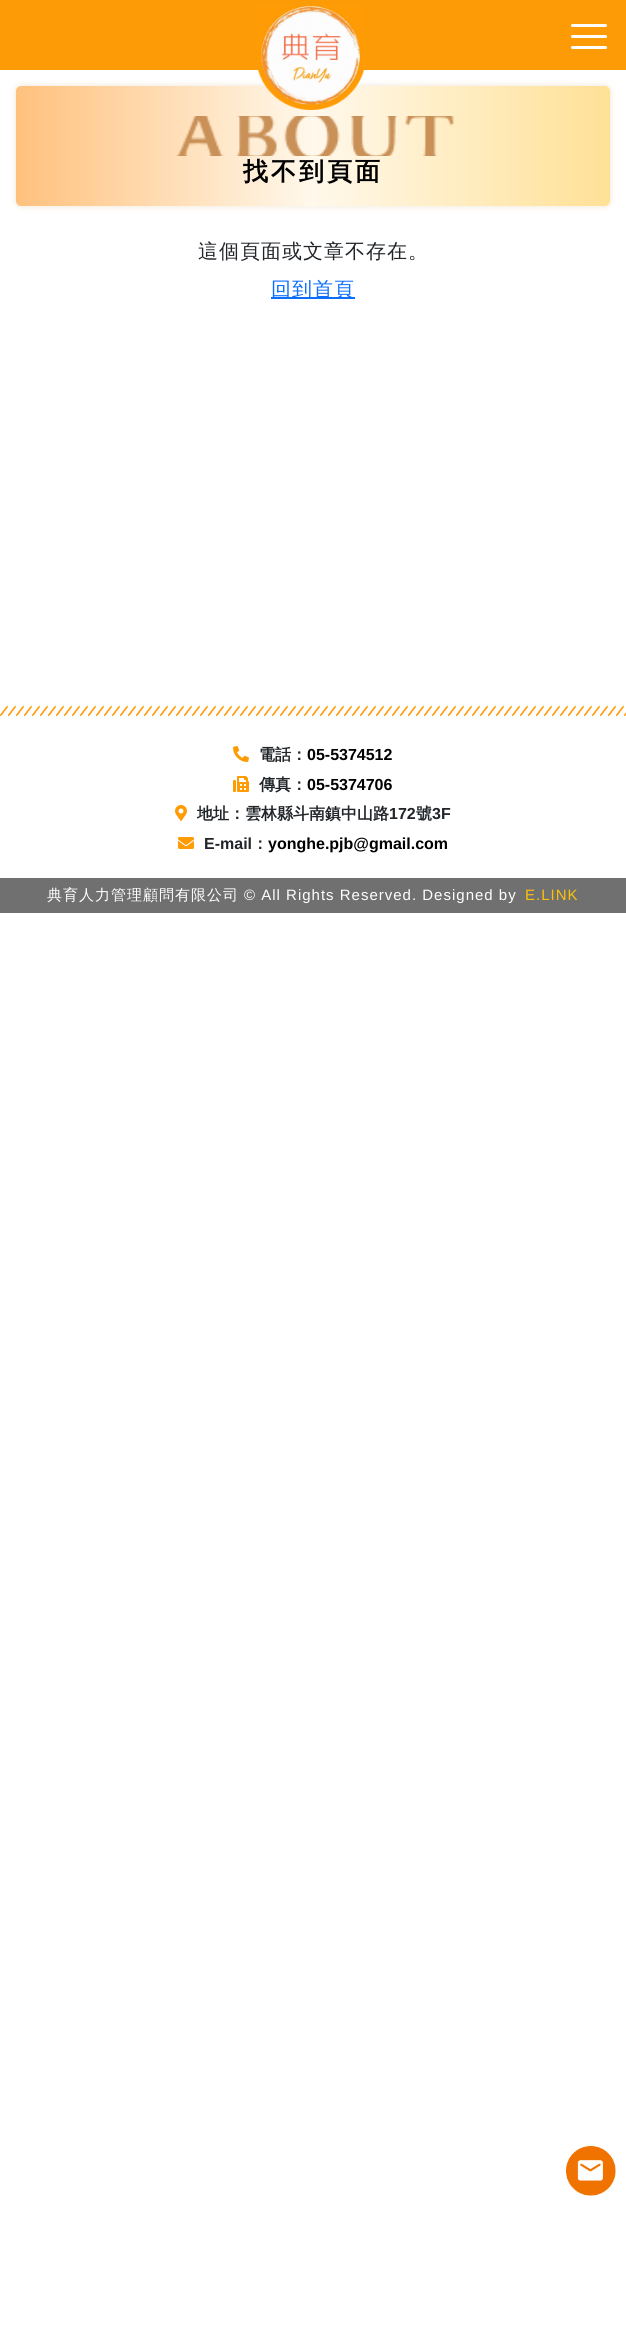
#include <cairo.h>
#include <math.h>
#include <stddef.h>

static cairo_t *c;
static void C(unsigned color){cairo_set_source_rgb(c, (color >> 16) / 255.0, (color >> 8 & 255) / 255.0, (color & 255) / 255.0);}
static void F(const char *family, double size, int italic, int bold){cairo_select_font_face(c, family, italic ? CAIRO_FONT_SLANT_ITALIC : CAIRO_FONT_SLANT_NORMAL,bold ? CAIRO_FONT_WEIGHT_BOLD : CAIRO_FONT_WEIGHT_NORMAL);cairo_set_font_size(c, size);}
static void T(double x, double y, const char *s){cairo_move_to(c, x, y);cairo_show_text(c, s);}
static void L(double x, double y, const char *s, double letter, double word){cairo_move_to(c, x, y);while (*s) {char ch[5] = {0};int n = 0;do ch[n++] = *s++; while ((*s & 0xC0) == 0x80);cairo_show_text(c, ch);cairo_rel_move_to(c, letter + word * (*ch == ' '), 0);}}
static void R(double x, double y, double w, double h){cairo_rectangle(c, x, y, w, h);cairo_fill(c);}
static void Q(double x, double y, double w, double h, double r){cairo_new_sub_path(c);cairo_arc(c, x + w - r, y + h - r, r, 0, M_PI / 2);cairo_arc(c, x + r, y + h - r, r, M_PI / 2, M_PI);cairo_arc(c, x + r, y + r, r, M_PI, 1.5 * M_PI);cairo_arc(c, x + w - r, y + r, r, 1.5 * M_PI, 2 * M_PI);cairo_close_path(c);}
static void S(double x, double y, double w, double h, double r, double blur, double alpha){cairo_push_group_with_content(c, CAIRO_CONTENT_ALPHA);cairo_set_operator(c, CAIRO_OPERATOR_SOURCE);for (int i = 15; i >= -15 && fmin(w, h) + blur * i / 3 > 0; i -= 2) {double e = blur * i / 6;cairo_set_source_rgba(c, 0, 0, 0, alpha * erfc((i - 1) / 8.5) / 2);Q(x - e, y - e, w + 2 * e, h + 2 * e, fmax(0, fmin(r + e + blur * .6, fmin(w, h) / 2 + e)));cairo_fill(c);}cairo_pattern_t *soft = cairo_pop_group(c);cairo_mask(c, soft);cairo_pattern_destroy(soft);}
static void I(const char *path, double x, double y, double w, double h){cairo_surface_t *image = cairo_image_surface_create_from_png(path);cairo_save(c);cairo_set_source_surface(c, image, x, y);cairo_rectangle(c, x, y, w, h);cairo_fill(c);cairo_restore(c);cairo_surface_destroy(image);}
int main(void) {
cairo_surface_t *surface = cairo_image_surface_create(CAIRO_FORMAT_RGB24, 626, 2336);
c = cairo_create(surface);
cairo_font_options_t *options = cairo_font_options_create();
cairo_font_options_set_hint_metrics(options, CAIRO_HINT_METRICS_OFF);
cairo_font_options_set_hint_style(options, CAIRO_HINT_STYLE_NONE);
cairo_set_font_options(c, options);
cairo_set_miter_limit(c, 4);
cairo_pattern_t *gradient;
C(0xffffff);
cairo_paint(c);
C(0xfd9b06);
R(0,0,626,70);
gradient = cairo_pattern_create_linear(-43,146,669,146);
cairo_pattern_add_color_stop_rgba(gradient,0,1,0.714,0.404,1);
cairo_pattern_add_color_stop_rgba(gradient,.5,1,0.973,0.922,1);
cairo_pattern_add_color_stop_rgba(gradient,1,1,0.863,0.522,1);
cairo_set_source(c,gradient);
cairo_pattern_destroy(gradient);
Q(16,86,594,120,5);
cairo_fill(c);
cairo_save(c);
cairo_set_fill_rule(c,CAIRO_FILL_RULE_EVEN_ODD);
cairo_new_path(c);
cairo_move_to(c,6,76);
cairo_line_to(c,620,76);
cairo_line_to(c,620,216);
cairo_line_to(c,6,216);
cairo_close_path(c);
cairo_move_to(c,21,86);
cairo_line_to(c,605,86);
cairo_curve_to(c,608,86,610,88,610,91);
cairo_line_to(c,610,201);
cairo_curve_to(c,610,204,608,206,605,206);
cairo_line_to(c,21,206);
cairo_curve_to(c,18,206,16,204,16,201);
cairo_line_to(c,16,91);
cairo_curve_to(c,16,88,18,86,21,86);
cairo_close_path(c);
cairo_clip(c);
C(0xac6d0c);
S(16,86,594,120,5,3,.2);
cairo_restore(c);
I("1.png",257,5,108,105);
C(0xffffff);
Q(571,24,36,3,1.5);
cairo_fill(c);
Q(571,35,36,3,1.5);
cairo_fill(c);
Q(571,46,36,3,1.5);
cairo_fill(c);
I("2.png",176,116,278,40);
F("WenQuanYi Zen Hei",25,0,1);
C(0x000000);
L(243,180,"找不到頁面",3,0);
F("WenQuanYi Zen Hei Medium",20,0,0);
C(0x212529);
L(198,258,"這個頁面或文章不存在。",1,0);
C(0x0d6efd);
R(271,297,84,2);
L(271,296,"回到首頁",1,0);
I("3.png",0,706,626,10);
I("4.png",233,746,16,16);
F("WenQuanYi Zen Hei",16,0,1);
C(0x212529);
T(259,760,"電話：");
F("Liberation Sans",16,0,1);
C(0x000000);
T(307,760,"05-5374512");
I("5.png",233,776,16,16);
F("WenQuanYi Zen Hei",16,0,1);
C(0x212529);
T(259,790,"傳真：");
F("Liberation Sans",16,0,1);
C(0x000000);
T(307,790,"05-5374706");
I("6.png",175,805,12,16);
F("WenQuanYi Zen Hei",16,0,1);
C(0x212529);
T(197,819,"地址：雲林縣斗南鎮中山路");
F("Liberation Sans",16,0,1);
T(389,819,"172");
F("WenQuanYi Zen Hei",16,0,1);
T(416,819,"號");
F("Liberation Sans",16,0,1);
T(432,819,"3F");
I("7.png",178,837,16,12);
T(204,849,"E-mail");
F("WenQuanYi Zen Hei",16,0,1);
T(252,849,"：");
F("Liberation Sans",16,0,1);
C(0x000000);
T(268,849,"yonghe.pjb@gmail.com");
C(0x707070);
R(0,878,626,35);
F("WenQuanYi Zen Hei Medium",15,0,0);
C(0xffffff);
L(47,900,"典育人力管理顧問有限公司",1,0);
F("Liberation Sans",15,0,0);
L(244,900,"© All Rights Reserved. Designed by",1,0);
C(0xffc107);
L(525,900,"E.LINK",1,0);
I("8.png",566,2146,50,50);
cairo_surface_write_to_png(surface, "o.png");
cairo_font_options_destroy(options);
cairo_destroy(c);
cairo_surface_destroy(surface);
return 0;
}
